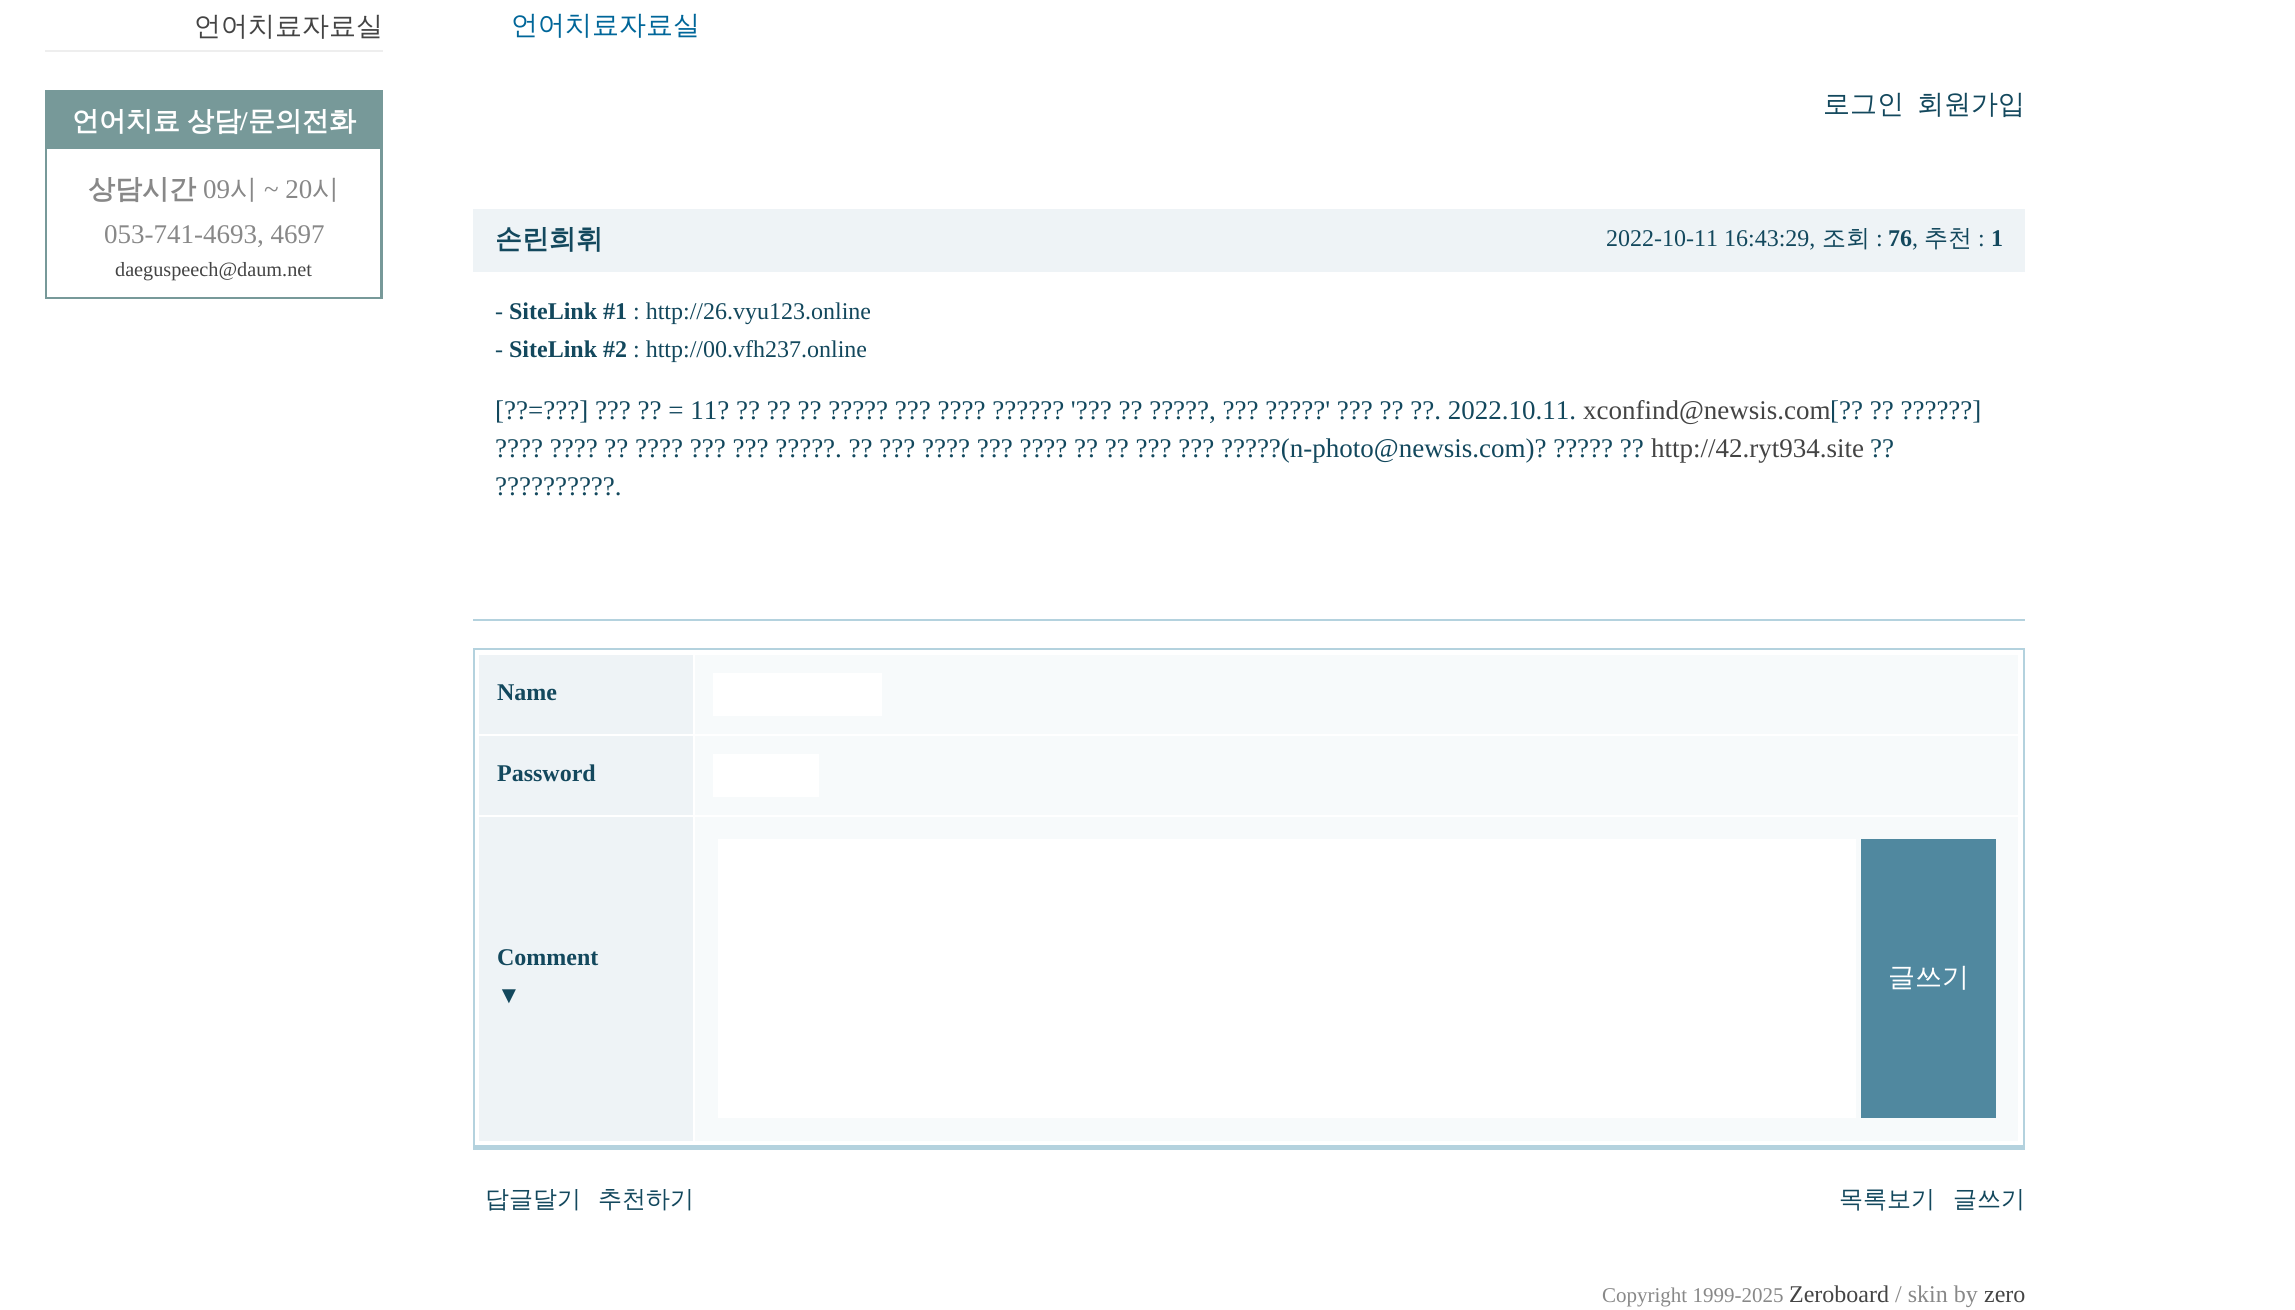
#include <cairo.h>
#include <math.h>
#include <stddef.h>

static cairo_t *c;
static void C(unsigned color){cairo_set_source_rgb(c, (color >> 16) / 255.0, (color >> 8 & 255) / 255.0, (color & 255) / 255.0);}
static void F(const char *family, double size, int italic, int bold){cairo_select_font_face(c, family, italic ? CAIRO_FONT_SLANT_ITALIC : CAIRO_FONT_SLANT_NORMAL,bold ? CAIRO_FONT_WEIGHT_BOLD : CAIRO_FONT_WEIGHT_NORMAL);cairo_set_font_size(c, size);}
static void T(double x, double y, const char *s){cairo_move_to(c, x, y);cairo_show_text(c, s);}
static void L(double x, double y, const char *s, double letter, double word){cairo_move_to(c, x, y);while (*s) {char ch[5] = {0};int n = 0;do ch[n++] = *s++; while ((*s & 0xC0) == 0x80);cairo_show_text(c, ch);cairo_rel_move_to(c, letter + word * (*ch == ' '), 0);}}
static void R(double x, double y, double w, double h){cairo_rectangle(c, x, y, w, h);cairo_fill(c);}
int main(void) {
cairo_surface_t *surface = cairo_image_surface_create(CAIRO_FORMAT_RGB24, 2295, 1310);
c = cairo_create(surface);
cairo_font_options_t *options = cairo_font_options_create();
cairo_font_options_set_hint_metrics(options, CAIRO_HINT_METRICS_OFF);
cairo_font_options_set_hint_style(options, CAIRO_HINT_STYLE_NONE);
cairo_set_font_options(c, options);
cairo_set_miter_limit(c, 4);
C(0xffffff);
cairo_paint(c);
F("WenQuanYi Zen Hei Medium",27,0,0);
C(0x444444);
T(194,35,"언어치료자료실");
C(0xeeeeee);
R(45,50,338,2);
C(0x779999);
R(45,90,338,209);
F("WenQuanYi Zen Hei",27,0,1);
C(0xffffff);
L(72,130,"언어치료 상담",0,-1);
F("Liberation Serif",27,0,1);
T(240,130,"/");
F("WenQuanYi Zen Hei",27,0,1);
T(248,130,"문의전화");
R(47,149,333,148);
C(0x888888);
T(88,198,"상담시간");
F("Liberation Serif",27,0,0);
T(203,198,"09");
F("WenQuanYi Zen Hei Medium",27,0,0);
T(230,198,"시");
F("Liberation Serif",27,0,0);
T(264,198,"~ 20");
F("WenQuanYi Zen Hei Medium",27,0,0);
T(312,198,"시");
F("Liberation Serif",27,0,0);
T(104,243,"053-741-4693, 4697");
F("Liberation Serif",20.25,0,0);
C(0x444444);
T(115,276,"daeguspeech@daum.net");
F("WenQuanYi Zen Hei Medium",27,0,0);
C(0x006699);
T(511,34,"언어치료자료실");
C(0x13485d);
T(1823,113,"로그인");
T(1917,113,"회원가입");
C(0xeef3f6);
R(473,209,1552,63);
F("WenQuanYi Zen Hei",27,0,1);
C(0x13485d);
T(495,248,"손린희휘");
F("Liberation Serif",24,0,0);
T(1606,246,"2022-10-11 16:43:29,");
F("WenQuanYi Zen Hei Medium",24,0,0);
T(1822,246,"조회");
F("Liberation Serif",24,0,0);
T(1876,246,":");
F("Liberation Serif",24,0,1);
T(1888,246,"76");
F("Liberation Serif",24,0,0);
T(1912,246,",");
F("WenQuanYi Zen Hei Medium",24,0,0);
T(1924,246,"추천");
F("Liberation Serif",24,0,0);
T(1978,246,":");
F("Liberation Serif",24,0,1);
T(1991,246,"1");
F("Liberation Serif",24,0,0);
T(495,319,"-");
F("Liberation Serif",24,0,1);
T(509,319,"SiteLink #1");
F("Liberation Serif",24,0,0);
T(633,319,": http://26.vyu123.online");
T(495,357,"-");
F("Liberation Serif",24,0,1);
T(509,357,"SiteLink #2");
F("Liberation Serif",24,0,0);
T(633,357,": http://00.vfh237.online");
F("Liberation Serif",27,0,0);
T(495,419,"[?\077=?\077?] ?\077? ?\077 = 11? ?\077 ?\077 ?\077 ?\077?\077? ?\077? ?\077?\077 ?\077?\077?\077 '?\077? ?\077 ?\077?\077?, ?\077? ?\077?\077?' ?\077? ?\077 ?\077. 2022.10.11.");
C(0x444444);
T(1583,419,"xconfind@newsis.com");
C(0x13485d);
T(1830,419,"[?\077 ?\077 ?\077?\077?\077]");
T(495,457,"?\077?\077 ?\077?\077 ?\077 ?\077?\077 ?\077? ?\077? ?\077?\077?. ?\077 ?\077? ?\077?\077 ?\077? ?\077?\077 ?\077 ?\077 ?\077? ?\077? ?\077?\077?(n-photo@newsis.com)? ?\077?\077? ?\077");
C(0x444444);
T(1651,457,"http://42.ryt934.site");
C(0x13485d);
T(1870,457,"?\077");
T(495,495,"?\077?\077?\077?\077?\077.");
C(0xb4d2de);
R(473,619,1552,2);
R(473,648,1552,502);
C(0xffffff);
R(475,650,1548,495);
C(0xeef3f6);
R(479,655,214,79);
F("Liberation Serif",24,0,1);
C(0x13485d);
T(497,700,"Name");
C(0xf7fafb);
R(695,655,1323,79);
C(0xffffff);
R(713,673,169,43);
C(0xeef3f6);
R(479,736,214,79);
C(0x13485d);
T(497,781,"Password");
C(0xf7fafb);
R(695,736,1323,79);
C(0xffffff);
R(713,754,106,43);
C(0xeef3f6);
R(479,817,214,324);
C(0x13485d);
T(497,965,"Comment");
F("Liberation Serif",24,0,0);
T(497,1003,"▼");
C(0xf7fafb);
R(695,817,1323,324);
C(0xffffff);
R(718,839,1138,279);
C(0x50889f);
R(1861,839,135,279);
F("WenQuanYi Zen Hei Medium",27,0,0);
C(0xffffff);
T(1888,986,"글쓰기");
F("WenQuanYi Zen Hei Medium",24,0,0);
C(0x13485d);
T(485,1207,"답글달기");
T(598,1207,"추천하기");
T(1839,1207,"목록보기");
T(1953,1207,"글쓰기");
F("Liberation Serif",21,0,0);
C(0x888888);
T(1602,1302,"Copyright 1999-2025");
F("Liberation Serif",24,0,0);
C(0x444444);
T(1789,1302,"Zeroboard");
C(0x888888);
T(1895,1302,"/ skin by");
C(0x444444);
T(1984,1302,"zero");
cairo_surface_write_to_png(surface, "o.png");
cairo_font_options_destroy(options);
cairo_destroy(c);
cairo_surface_destroy(surface);
return 0;
}
